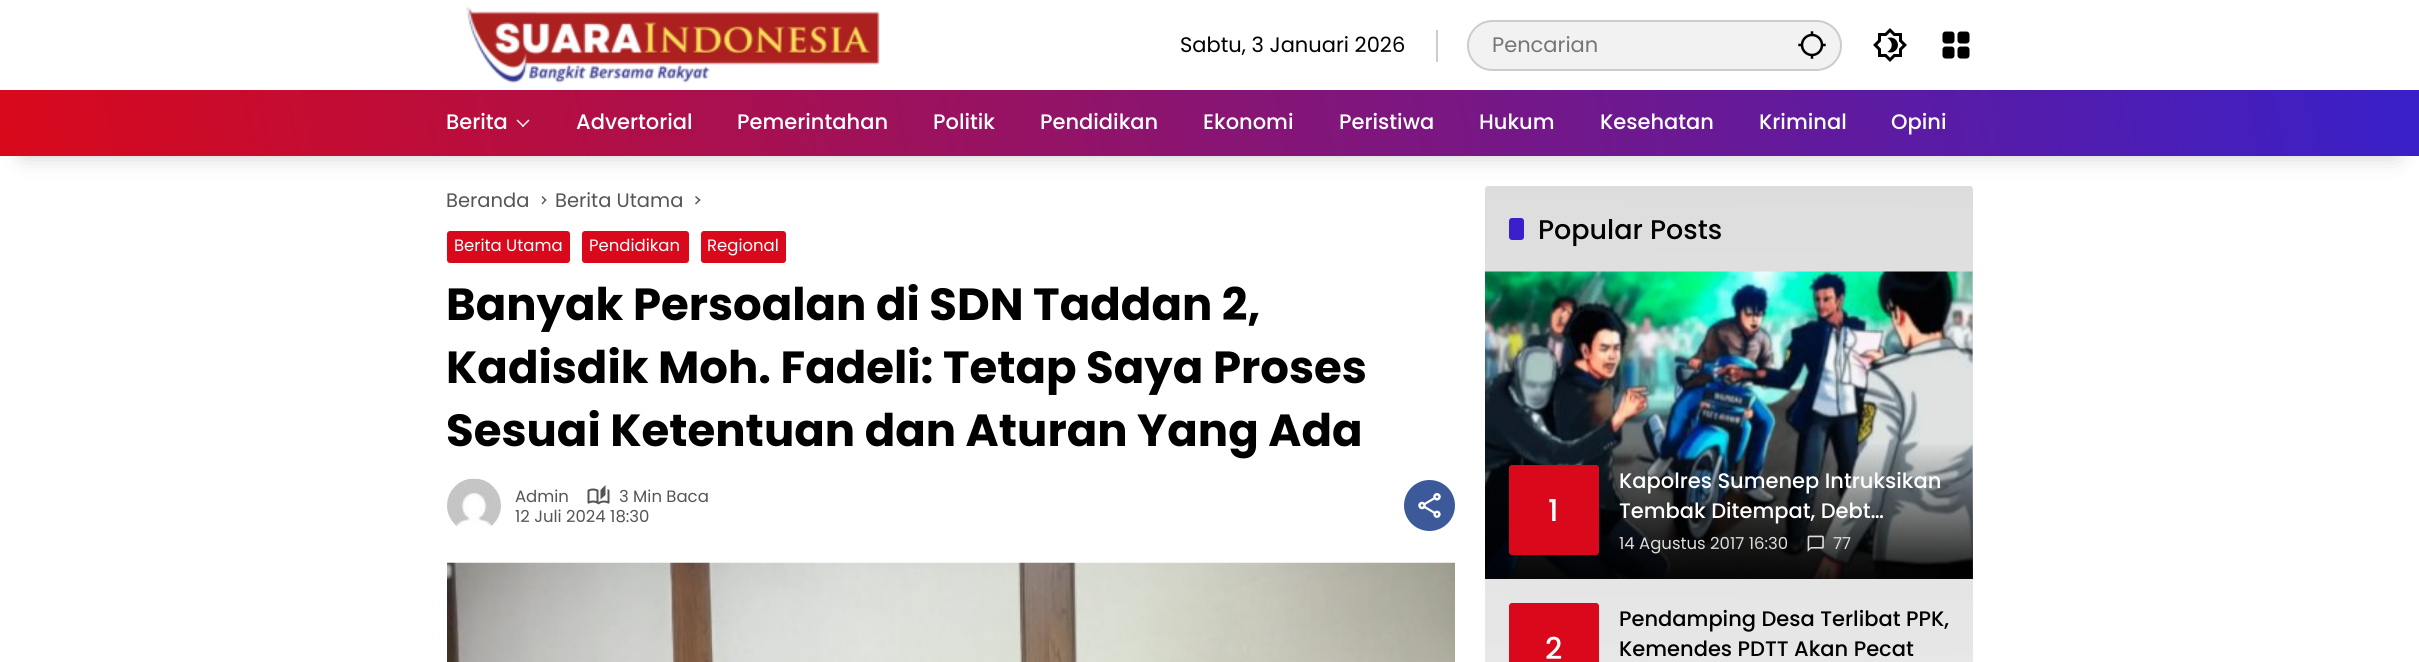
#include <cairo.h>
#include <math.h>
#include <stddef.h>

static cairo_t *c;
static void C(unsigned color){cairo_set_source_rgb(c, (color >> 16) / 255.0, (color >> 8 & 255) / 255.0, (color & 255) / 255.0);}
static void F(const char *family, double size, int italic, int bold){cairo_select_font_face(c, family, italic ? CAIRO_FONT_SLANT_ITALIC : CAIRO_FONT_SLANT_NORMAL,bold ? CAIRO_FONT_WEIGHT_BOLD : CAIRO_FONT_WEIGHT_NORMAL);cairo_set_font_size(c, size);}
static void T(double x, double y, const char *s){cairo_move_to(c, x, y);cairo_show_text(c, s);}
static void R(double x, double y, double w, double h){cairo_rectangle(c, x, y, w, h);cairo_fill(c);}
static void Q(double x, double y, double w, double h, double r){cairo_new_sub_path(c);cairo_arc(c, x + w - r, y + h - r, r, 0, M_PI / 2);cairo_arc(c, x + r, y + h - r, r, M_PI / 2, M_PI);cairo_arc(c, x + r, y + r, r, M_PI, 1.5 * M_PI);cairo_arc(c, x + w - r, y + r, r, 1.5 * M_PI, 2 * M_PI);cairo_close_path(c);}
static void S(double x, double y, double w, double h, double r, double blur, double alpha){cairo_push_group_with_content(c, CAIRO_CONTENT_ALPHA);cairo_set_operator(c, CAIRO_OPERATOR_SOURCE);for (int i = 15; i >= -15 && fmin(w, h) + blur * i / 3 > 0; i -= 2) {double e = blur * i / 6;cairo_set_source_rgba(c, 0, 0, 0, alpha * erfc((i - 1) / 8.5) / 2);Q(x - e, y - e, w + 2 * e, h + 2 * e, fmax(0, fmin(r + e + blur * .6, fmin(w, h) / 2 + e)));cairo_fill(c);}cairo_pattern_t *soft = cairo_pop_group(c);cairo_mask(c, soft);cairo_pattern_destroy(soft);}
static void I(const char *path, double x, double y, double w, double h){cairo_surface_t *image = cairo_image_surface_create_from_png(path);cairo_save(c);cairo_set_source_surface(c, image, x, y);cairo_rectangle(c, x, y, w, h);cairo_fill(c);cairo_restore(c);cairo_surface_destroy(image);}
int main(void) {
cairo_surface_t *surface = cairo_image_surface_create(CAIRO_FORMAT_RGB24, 2419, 662);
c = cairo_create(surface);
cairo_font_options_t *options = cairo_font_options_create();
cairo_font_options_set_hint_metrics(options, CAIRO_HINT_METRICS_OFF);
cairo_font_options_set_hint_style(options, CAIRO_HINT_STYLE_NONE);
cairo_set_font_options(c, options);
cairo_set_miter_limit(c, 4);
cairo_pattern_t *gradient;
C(0xffffff);
cairo_paint(c);
I("1.png",466,7,414,76);
C(0xcccccc);
R(1436,30,2,32);
F("Poppins",21,0,0);
C(0x000000);
T(1180,52,"Sabtu, 3 Januari 2026");
C(0xf2f2f2);
Q(1468,21,373,49,24.5);
cairo_fill_preserve(c);
C(0xcccccc);
cairo_stroke(c);
C(0x757575);
T(1492,52,"Pencarian");
I("2.png",1798,31,28,28);
I("3.png",1873,28,34,34);
I("4.png",1942,31,28,28);
gradient = cairo_pattern_create_linear(1721,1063,1736,182);
cairo_pattern_add_color_stop_rgba(gradient,0,0.937,0.937,0.937,1);
cairo_pattern_add_color_stop_rgba(gradient,1,0.867,0.867,0.867,1);
cairo_set_source(c,gradient);
cairo_pattern_destroy(gradient);
Q(1485,186,488,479,3);
cairo_fill(c);
C(0x000000);
S(23,135,2374,21,0,11,.2);
gradient = cairo_pattern_create_linear(31,331,2389,-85);
cairo_pattern_add_color_stop_rgba(gradient,0,0.851,0.035,0.106,1);
cairo_pattern_add_color_stop_rgba(gradient,1,0.224,0.125,0.788,1);
cairo_set_source(c,gradient);
cairo_pattern_destroy(gradient);
R(0,90,2419,66);
F("Poppins Medium",21,0,0);
C(0xffffff);
T(446,129,"Berita");
cairo_new_path(c);
cairo_move_to(c,528.5,119.5);
cairo_line_to(c,529.5,120.5);
cairo_line_to(c,523,127);
cairo_line_to(c,522,126);
cairo_close_path(c);
cairo_fill(c);
cairo_new_path(c);
cairo_move_to(c,517.5,119.5);
cairo_line_to(c,524,126);
cairo_line_to(c,523,127);
cairo_line_to(c,516.5,120.5);
cairo_close_path(c);
cairo_fill(c);
T(576,129,"Advertorial");
T(737,129,"Pemerintahan");
T(933,129,"Politik");
T(1040,129,"Pendidikan");
T(1203,129,"Ekonomi");
T(1339,129,"Peristiwa");
T(1479,129,"Hukum");
T(1600,129,"Kesehatan");
T(1759,129,"Kriminal");
T(1891,129,"Opini");
F("Poppins",19.5,0,0);
C(0x555555);
T(446,207,"Beranda");
cairo_new_path(c);
cairo_move_to(c,541.5,197);
cairo_line_to(c,542.5,196);
cairo_line_to(c,546.5,200);
cairo_line_to(c,545.5,201);
cairo_close_path(c);
cairo_fill(c);
cairo_new_path(c);
cairo_move_to(c,541.5,203.5);
cairo_line_to(c,545.5,199);
cairo_line_to(c,546.5,200);
cairo_line_to(c,542.5,204.5);
cairo_close_path(c);
cairo_fill(c);
T(555,207,"Berita Utama");
cairo_new_path(c);
cairo_move_to(c,695,197);
cairo_line_to(c,696,196);
cairo_line_to(c,700.5,200);
cairo_line_to(c,699.5,201);
cairo_close_path(c);
cairo_fill(c);
cairo_new_path(c);
cairo_move_to(c,695,203.5);
cairo_line_to(c,699.5,199);
cairo_line_to(c,700.5,200);
cairo_line_to(c,696,204.5);
cairo_close_path(c);
cairo_fill(c);
C(0xd9091b);
Q(447,231,123,32,3);
cairo_fill(c);
F("Poppins",16.5,0,0);
C(0xffffff);
T(454,251,"Berita Utama");
C(0xd9091b);
Q(582,231,107,32,3);
cairo_fill(c);
C(0xffffff);
T(589,251,"Pendidikan");
C(0xd9091b);
Q(701,231,85,32,3);
cairo_fill(c);
C(0xffffff);
T(707,251,"Regional");
F("Poppins",45,0,1);
C(0x000000);
T(446,320,"Banyak Persoalan di SDN Taddan 2,");
T(446,383,"Kadisdik Moh. Fadeli: Tetap Saya Proses");
T(446,446,"Sesuai Ketentuan dan Aturan Yang Ada");
I("5.png",447,478,54,49);
F("Poppins",16.5,0,0);
C(0x555555);
T(515,502,"Admin");
I("6.png",587,485,23,20);
T(619,502,"3 Min Baca");
T(515,522,"12 Juli 2024 18:30");
C(0x3c5a99);
cairo_new_path(c);
cairo_arc(c,1429.5,505.5,25.5,0,2 * M_PI);
cairo_fill(c);
I("7.png",1418,493,23,25);
I("8.png",447,562,1008,100);
C(0x3920c9);
Q(1509,218,15,22,3);
cairo_fill(c);
F("Poppins Medium",27,0,0);
C(0x000000);
T(1538,239,"Popular Posts");
I("9.png",1485,271,488,308);
gradient = cairo_pattern_create_linear(1729,579,1729,441);
cairo_pattern_add_color_stop_rgba(gradient,0,0,0,0,.9);
cairo_pattern_add_color_stop_rgba(gradient,1,0,0,0,0);
cairo_set_source(c,gradient);
cairo_pattern_destroy(gradient);
R(1485,444,488,135);
C(0xd9091b);
Q(1509,465,90,90,3);
cairo_fill(c);
F("Poppins Medium",30,0,0);
C(0xffffff);
T(1548,521,"1");
F("Poppins Medium",21,0,0);
T(1619,488,"Kapolres Sumenep Intruksikan");
T(1619,518,"Tembak Ditempat, Debt…");
F("Poppins",16.5,0,0);
C(0xdddddd);
T(1619,549,"14 Agustus 2017 16:30");
I("10.png",1807,535,17,17);
T(1833,549,"77");
C(0xd9091b);
Q(1509,603,90,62,3);
cairo_fill(c);
F("Poppins Medium",30,0,0);
C(0xffffff);
T(1545,659,"2");
F("Poppins Medium",21,0,0);
C(0x000000);
T(1619,626,"Pendamping Desa Terlibat PPK,");
T(1619,656,"Kemendes PDTT Akan Pecat");
cairo_surface_write_to_png(surface, "o.png");
cairo_font_options_destroy(options);
cairo_destroy(c);
cairo_surface_destroy(surface);
return 0;
}
